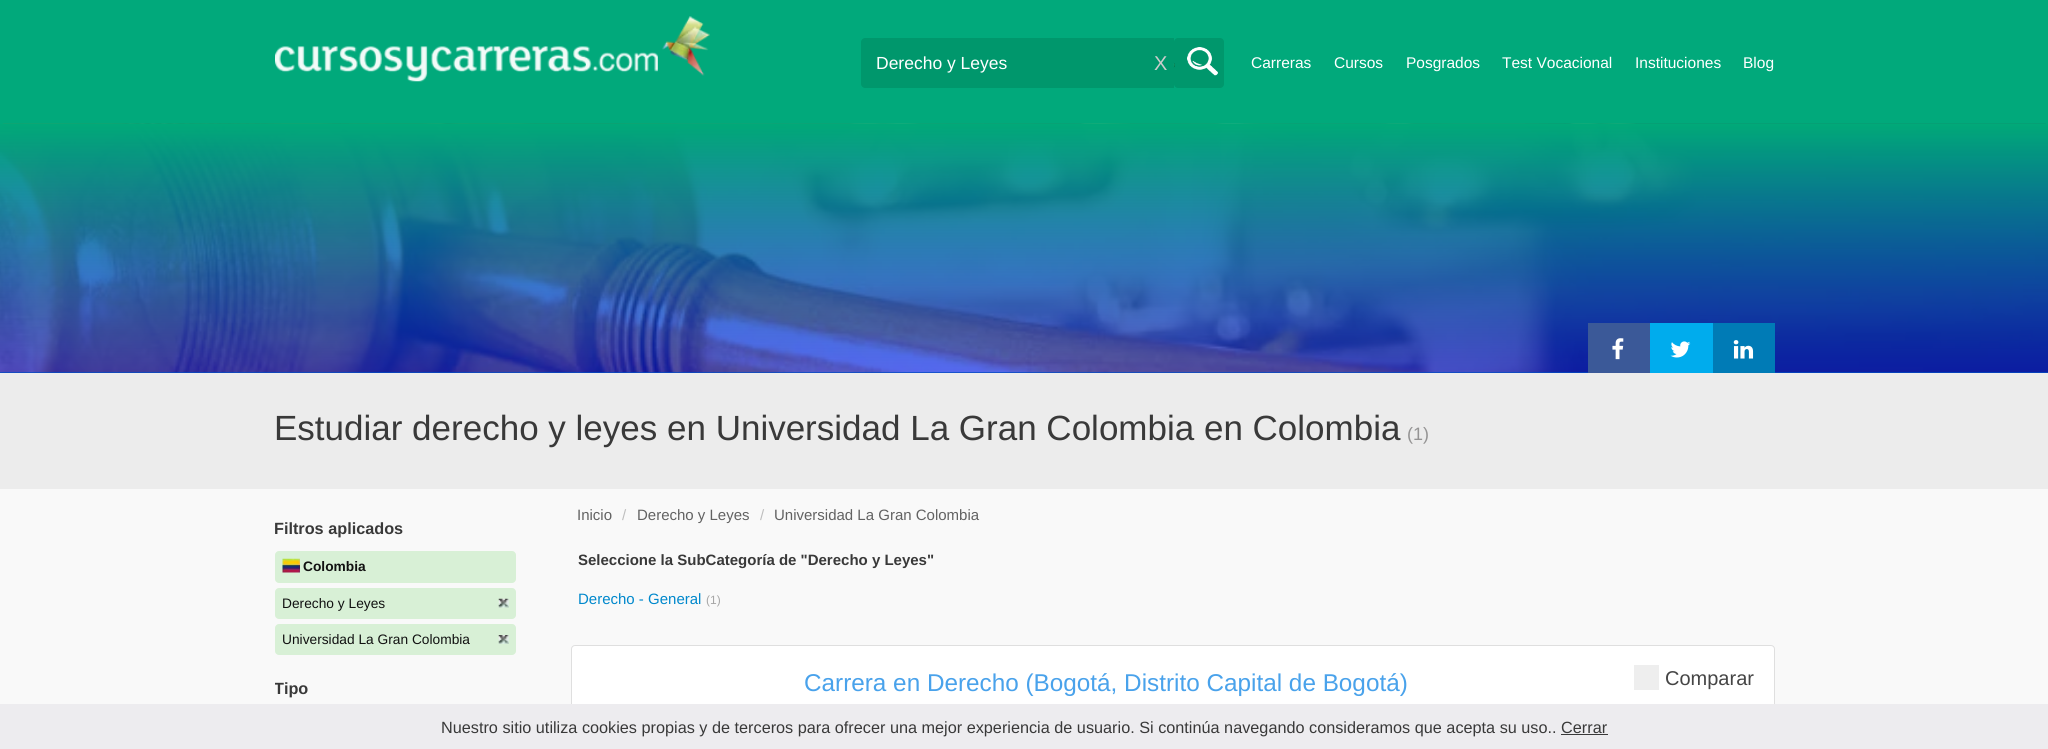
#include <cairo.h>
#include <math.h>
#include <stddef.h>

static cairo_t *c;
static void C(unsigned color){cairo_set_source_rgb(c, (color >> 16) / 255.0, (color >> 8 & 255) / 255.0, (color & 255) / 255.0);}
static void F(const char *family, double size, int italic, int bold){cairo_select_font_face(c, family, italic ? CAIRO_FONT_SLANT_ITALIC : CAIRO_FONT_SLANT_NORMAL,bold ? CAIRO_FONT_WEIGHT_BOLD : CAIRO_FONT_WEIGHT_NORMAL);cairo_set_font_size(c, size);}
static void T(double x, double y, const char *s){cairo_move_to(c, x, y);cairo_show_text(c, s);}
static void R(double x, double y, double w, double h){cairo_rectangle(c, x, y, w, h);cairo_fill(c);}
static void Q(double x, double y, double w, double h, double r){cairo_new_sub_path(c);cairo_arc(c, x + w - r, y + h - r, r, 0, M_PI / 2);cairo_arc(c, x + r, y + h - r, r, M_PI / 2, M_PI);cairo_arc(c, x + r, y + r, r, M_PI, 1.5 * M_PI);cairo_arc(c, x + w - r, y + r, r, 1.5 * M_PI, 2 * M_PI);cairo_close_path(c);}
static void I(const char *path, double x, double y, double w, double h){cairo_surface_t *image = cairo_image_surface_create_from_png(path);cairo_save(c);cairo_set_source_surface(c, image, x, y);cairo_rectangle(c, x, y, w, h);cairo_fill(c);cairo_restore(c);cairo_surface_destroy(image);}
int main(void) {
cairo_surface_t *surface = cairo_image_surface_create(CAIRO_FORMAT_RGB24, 2048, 749);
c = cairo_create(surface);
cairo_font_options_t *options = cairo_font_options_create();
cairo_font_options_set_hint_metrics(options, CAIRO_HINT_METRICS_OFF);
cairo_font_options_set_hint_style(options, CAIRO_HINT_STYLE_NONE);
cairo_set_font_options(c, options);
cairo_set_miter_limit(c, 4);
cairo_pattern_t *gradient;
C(0xf9f9f9);
cairo_paint(c);
C(0x01a97b);
R(0,0,2048,373);
I("1.png",275,16,435,66);
C(0x00976c);
cairo_new_path(c);
cairo_move_to(c,865,38);
cairo_line_to(c,1174,38);
cairo_line_to(c,1174,88);
cairo_line_to(c,865,88);
cairo_curve_to(c,863,88,861,86,861,84);
cairo_line_to(c,861,42);
cairo_curve_to(c,861,40,863,38,865,38);
cairo_close_path(c);
cairo_fill(c);
F("Liberation Sans",17.5,0,0);
C(0xffffff);
T(876,69,"Derecho y Leyes");
F("Liberation Sans",20,0,0);
C(0xcccccc);
T(1154,70,"X");
C(0x00976c);
Q(1174,38,50,50,4);
cairo_fill(c);
I("2.png",1173,47,45,29);
F("Liberation Sans",15.5,0,0);
C(0xffffff);
T(1251,68,"Carreras");
T(1334,68,"Cursos");
T(1406,68,"Posgrados");
T(1502,68,"Test Vocacional");
T(1635,68,"Instituciones");
T(1743,68,"Blog");
I("3.png",0,123,2048,250);
gradient = cairo_pattern_create_linear(1024,124,1024,432);
cairo_pattern_add_color_stop_rgba(gradient,0,0.004,0.663,0.471,1);
cairo_pattern_add_color_stop_rgba(gradient,1,0.02,0,1,.6);
cairo_set_source(c,gradient);
cairo_pattern_destroy(gradient);
R(0,124,2048,249);
C(0x3b5998);
R(1588,323,62,50);
I("4.png",1612,338,12,22);
C(0x00aced);
R(1650,323,63,50);
I("5.png",1670,341,21,17);
C(0x007bb6);
R(1713,323,62,50);
I("6.png",1733,340,21,19);
C(0xececec);
R(0,373,2048,116);
F("Liberation Sans",35,0,0);
C(0x393939);
T(274,440,"Estudiar derecho y leyes en Universidad La Gran Colombia en Colombia");
F("Liberation Sans",18,0,0);
C(0x959494);
T(1407,440,"(1)");
F("Liberation Sans",16.25,0,1);
C(0x393939);
T(274,534,"Filtros aplicados");
C(0xd8f0d6);
Q(275,551,241,32,4);
cairo_fill(c);
I("7.png",282,558,18,15);
F("Liberation Sans",13.75,0,1);
C(0x111111);
T(303,571,"Colombia");
C(0xd8f0d6);
Q(275,588,241,31,4);
cairo_fill(c);
F("Liberation Sans",13.75,0,0);
C(0x111111);
T(282,608,"Derecho y Leyes");
I("8.png",498,598,11,10);
C(0xd8f0d6);
Q(275,624,241,31,4);
cairo_fill(c);
C(0x111111);
T(282,644,"Universidad La Gran Colombia");
I("9.png",498,635,11,9);
cairo_save(c);
cairo_rectangle(c,275,489,1500,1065);
cairo_clip(c);
F("Liberation Sans",16.25,0,1);
C(0x393939);
T(274,694,"Tipo");
cairo_restore(c);
F("Liberation Sans",15,0,0);
C(0x626262);
T(577,520,"Inicio");
C(0xbebebe);
T(622,520,"/");
C(0x626262);
T(637,520,"Derecho y Leyes");
C(0xbebebe);
T(760,520,"/");
C(0x626262);
T(774,520,"Universidad La Gran Colombia");
F("Liberation Sans",15,0,1);
C(0x393939);
T(578,565,"Seleccione la SubCategoría de \"Derecho y Leyes\"");
F("Liberation Sans",15,0,0);
C(0x0088cc);
T(578,604,"Derecho - General");
F("Liberation Sans",12,0,0);
C(0xa6a6a6);
T(706,604,"(1)");
C(0xffffff);
Q(571.5,645.5,1203,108,3.5);
cairo_fill_preserve(c);
C(0xdfdfdf);
cairo_set_line_width(c,1);
cairo_stroke(c);
F("Liberation Sans",24.3,0,0);
C(0x49a2eb);
T(804,691,"Carrera en Derecho (Bogotá, Distrito Capital de Bogotá)");
C(0xeeeeee);
R(1634,665,25,25);
F("Liberation Sans",20,0,0);
C(0x454545);
T(1665,685,"Comparar");
C(0xedecef);
R(0,704,2048,45);
F("Liberation Sans",16.25,0,0);
C(0x393939);
T(441,733,"Nuestro sitio utiliza cookies propias y de terceros para ofrecer una mejor experiencia de usuario. Si continúa navegando consideramos que acepta su uso.. Cerrar");
R(1561,734,47,1);
cairo_surface_write_to_png(surface, "o.png");
cairo_font_options_destroy(options);
cairo_destroy(c);
cairo_surface_destroy(surface);
return 0;
}
